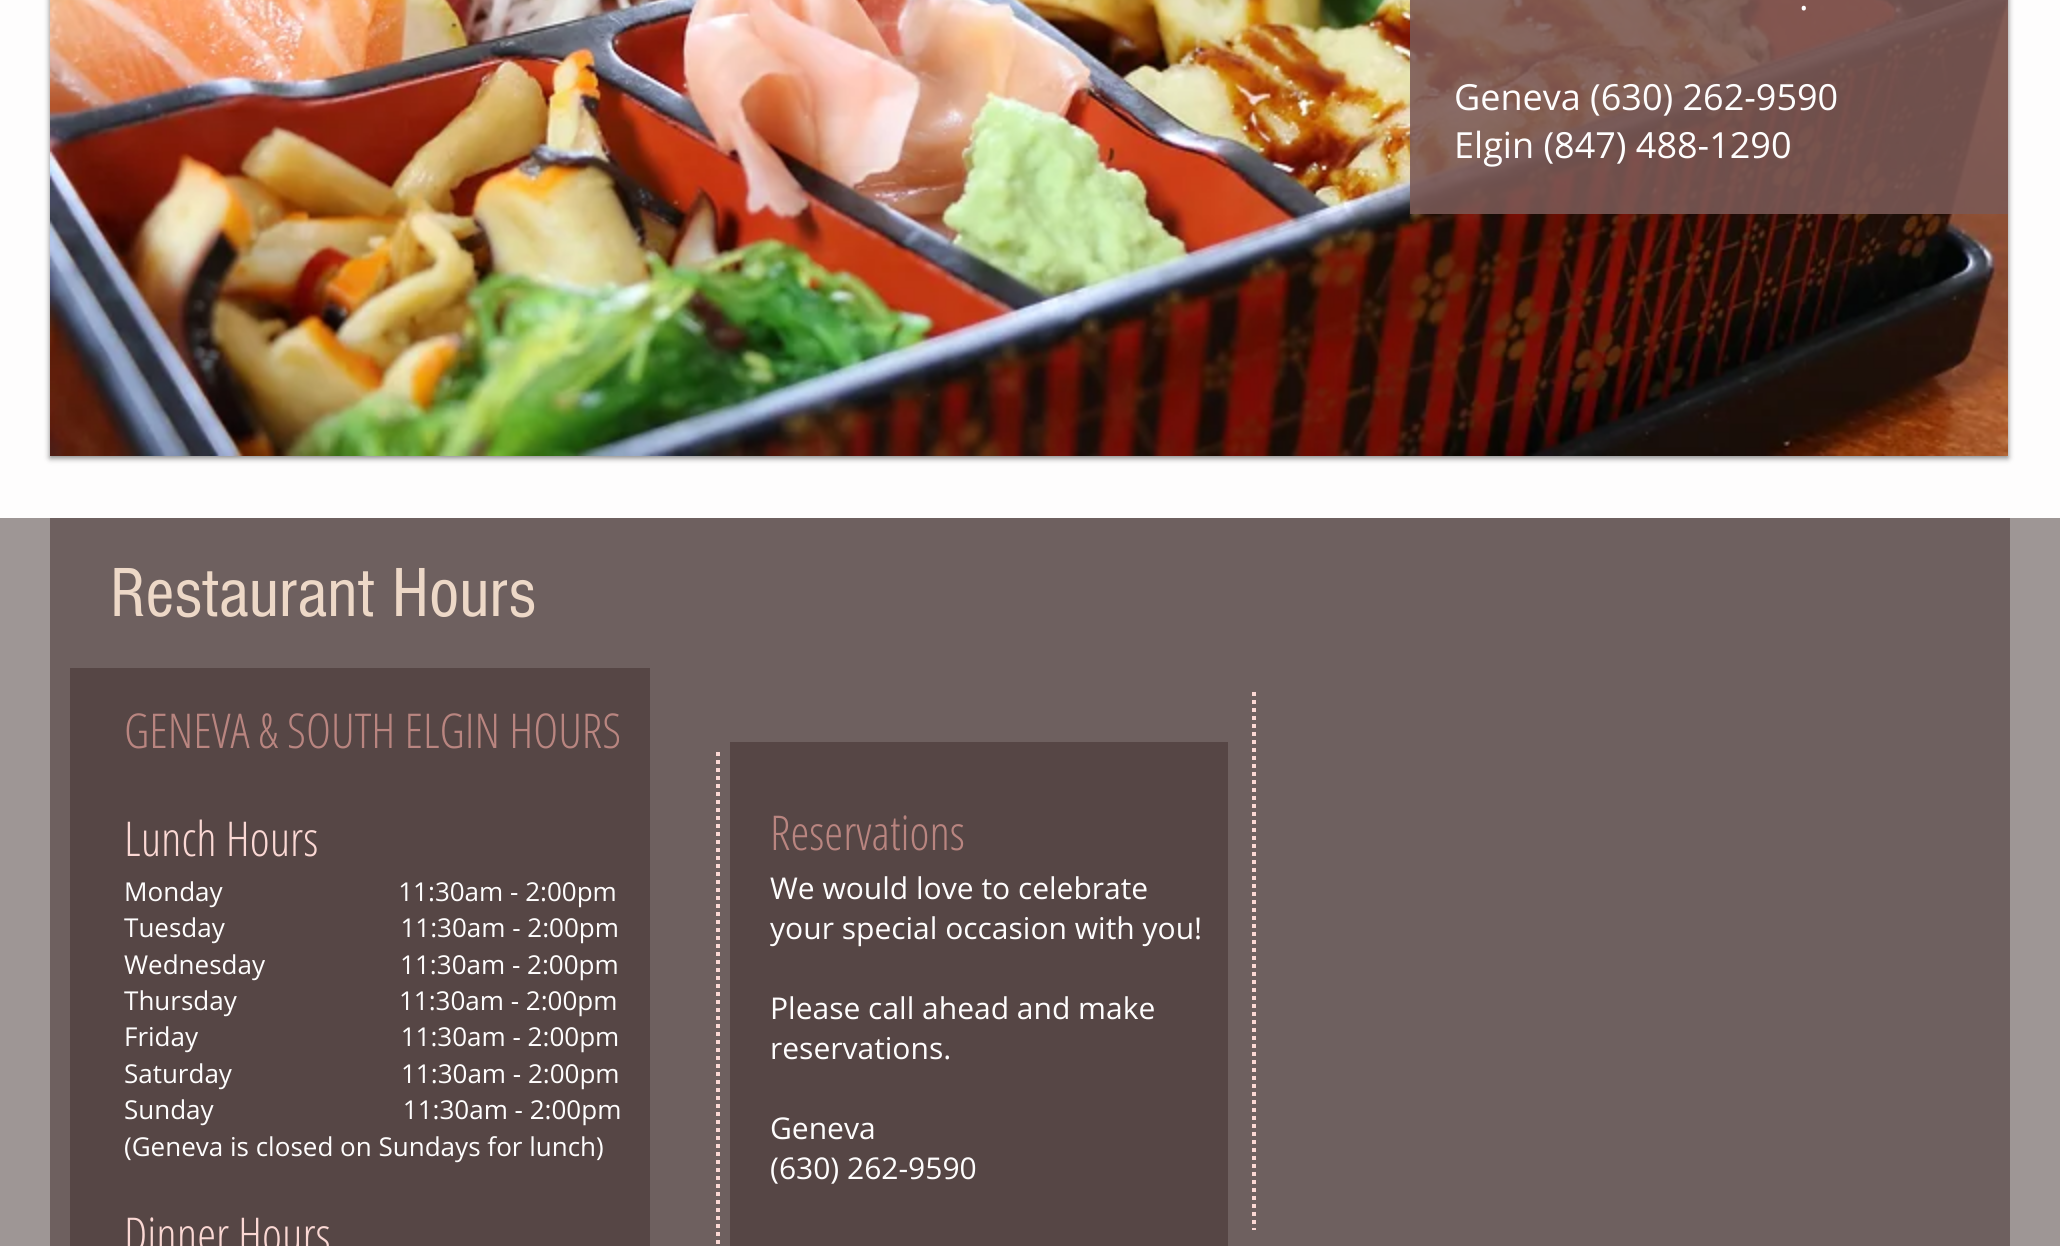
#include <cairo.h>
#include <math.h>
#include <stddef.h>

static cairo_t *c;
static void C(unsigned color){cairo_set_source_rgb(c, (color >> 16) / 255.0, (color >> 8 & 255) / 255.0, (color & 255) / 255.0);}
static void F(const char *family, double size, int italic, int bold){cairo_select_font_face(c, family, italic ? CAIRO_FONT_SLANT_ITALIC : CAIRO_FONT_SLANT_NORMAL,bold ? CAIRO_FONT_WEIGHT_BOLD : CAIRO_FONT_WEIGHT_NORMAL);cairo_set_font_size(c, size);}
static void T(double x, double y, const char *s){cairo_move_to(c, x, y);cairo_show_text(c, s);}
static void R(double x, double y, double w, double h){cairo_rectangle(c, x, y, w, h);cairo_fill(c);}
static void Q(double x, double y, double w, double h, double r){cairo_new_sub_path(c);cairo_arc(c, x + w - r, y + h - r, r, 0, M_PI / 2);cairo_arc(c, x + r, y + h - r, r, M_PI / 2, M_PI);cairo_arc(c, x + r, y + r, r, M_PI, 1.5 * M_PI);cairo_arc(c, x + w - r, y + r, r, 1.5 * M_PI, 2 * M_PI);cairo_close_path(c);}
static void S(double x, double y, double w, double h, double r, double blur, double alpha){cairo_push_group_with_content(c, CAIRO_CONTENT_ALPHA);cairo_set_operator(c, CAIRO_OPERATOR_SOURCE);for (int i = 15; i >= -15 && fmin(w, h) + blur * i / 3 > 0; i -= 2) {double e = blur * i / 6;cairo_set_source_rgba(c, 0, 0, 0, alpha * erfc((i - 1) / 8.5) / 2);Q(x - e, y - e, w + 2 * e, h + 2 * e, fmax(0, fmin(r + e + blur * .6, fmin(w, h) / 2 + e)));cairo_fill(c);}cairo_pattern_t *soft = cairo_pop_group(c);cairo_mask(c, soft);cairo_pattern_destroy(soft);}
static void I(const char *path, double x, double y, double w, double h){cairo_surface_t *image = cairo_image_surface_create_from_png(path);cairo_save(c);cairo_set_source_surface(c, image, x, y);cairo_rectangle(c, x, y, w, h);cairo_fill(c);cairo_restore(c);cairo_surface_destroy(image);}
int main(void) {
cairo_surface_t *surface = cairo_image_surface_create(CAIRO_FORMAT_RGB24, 2060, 1246);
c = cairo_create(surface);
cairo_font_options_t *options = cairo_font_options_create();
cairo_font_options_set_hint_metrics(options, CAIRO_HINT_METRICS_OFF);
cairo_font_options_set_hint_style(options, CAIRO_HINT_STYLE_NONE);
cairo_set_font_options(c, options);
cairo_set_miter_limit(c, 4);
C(0xfefdfd);
cairo_paint(c);
C(0x000000);
S(50,-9,1958,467,0,3,.5);
I("1.png",50,0,1958,456);
cairo_set_source_rgba(c,0.482,0.349,0.333,0.88);
R(1410,0,598,214);
F("Open Sans",36,0,0);
C(0xfefdfd);
T(1799,10,".");
T(1454,110,"Geneva (630) 262-9590");
T(1454,158,"Elgin (847) 488-1290");
C(0x9e9695);
R(0,518,2060,728);
C(0x6e605f);
R(50,518,1960,728);
F("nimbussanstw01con",72,0,0);
C(0xedd8c7);
T(110,616,"Restaurant Hours");
C(0x564645);
R(70,668,580,578);
F("Open Sans Condensed Light",48,0,0);
C(0xb98580);
T(124,748,"GENEVA & SOUTH ELGIN HOURS");
C(0xfbd8d4);
T(124,856,"Lunch Hours");
F("Open Sans",26,0,0);
C(0xfefdfd);
T(124,901,"Monday                          11:30am - 2:00pm");
T(124,937,"Tuesday                          11:30am - 2:00pm");
T(124,974,"Wednesday                    11:30am - 2:00pm");
T(124,1010,"Thursday                        11:30am - 2:00pm");
T(124,1046,"Friday                              11:30am - 2:00pm");
T(124,1083,"Saturday");
T(401,1083,"11:30am - 2:00pm");
T(124,1119,"Sunday                            11:30am - 2:00pm");
T(124,1156,"(Geneva is closed on Sundays for lunch)");
F("Open Sans Condensed Light",48,0,0);
C(0xfbd8d4);
T(124,1252,"Dinner Hours");
cairo_new_path(c);
cairo_move_to(c,718,752);
cairo_line_to(c,718,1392);
cairo_set_line_width(c,4);
cairo_set_dash(c,(double[]){4,4},2,0);
cairo_stroke(c);
C(0x564645);
R(730,742,498,504);
cairo_new_path(c);
cairo_move_to(c,1254,692);
cairo_line_to(c,1254,1230);
C(0xfbd8d4);
cairo_stroke(c);
C(0xb98580);
T(770,850,"Reservations");
F("Open Sans",30,0,0);
C(0xfefdfd);
T(770,899,"We would love to celebrate");
T(770,939,"your special occasion with you!");
T(770,1019,"Please call ahead and make");
T(770,1059,"reservations.");
T(770,1139,"Geneva");
T(770,1179,"(630) 262-9590");
cairo_surface_write_to_png(surface, "o.png");
cairo_font_options_destroy(options);
cairo_destroy(c);
cairo_surface_destroy(surface);
return 0;
}
